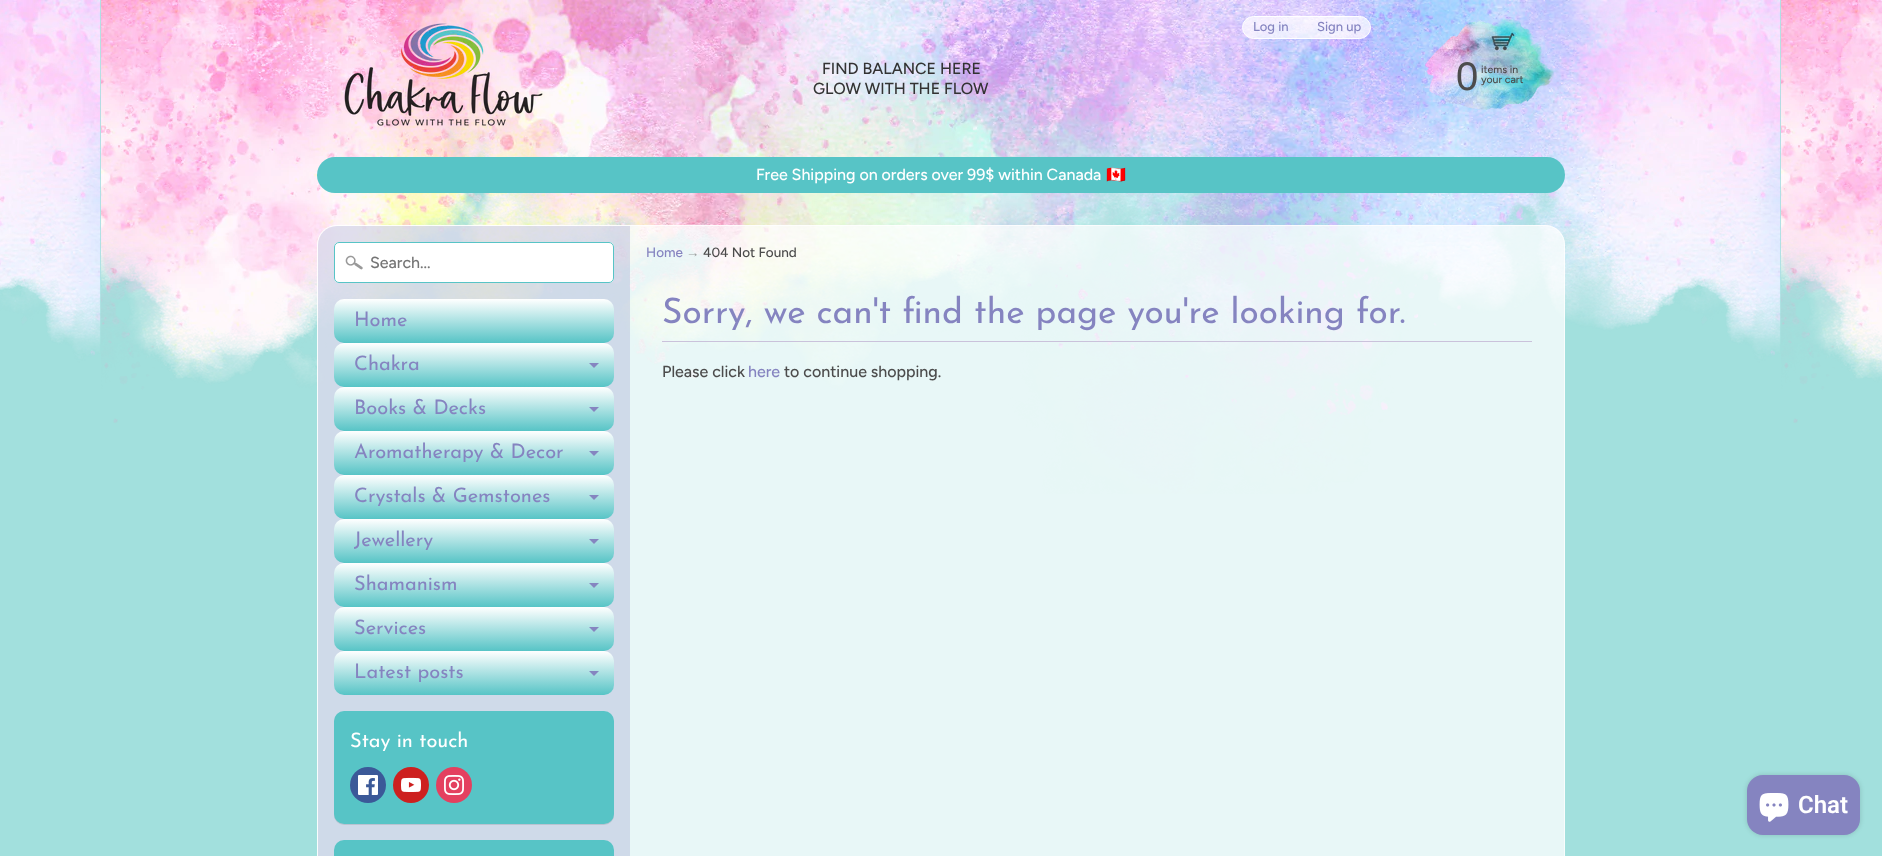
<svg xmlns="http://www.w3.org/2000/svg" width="1882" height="856">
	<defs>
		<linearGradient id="g1" gradientUnits="userSpaceOnUse" x1="474" y1="299" x2="474" y2="343"><stop offset="0" stop-color="#FFFFFF" /><stop offset="1" stop-color="#57C4C6" /></linearGradient>
		<linearGradient id="g2" gradientUnits="userSpaceOnUse" x1="474" y1="343" x2="474" y2="387"><stop offset="0" stop-color="#FFFFFF" /><stop offset="1" stop-color="#57C4C6" /></linearGradient>
		<linearGradient id="g3" gradientUnits="userSpaceOnUse" x1="474" y1="387" x2="474" y2="431"><stop offset="0" stop-color="#FFFFFF" /><stop offset="1" stop-color="#57C4C6" /></linearGradient>
		<linearGradient id="g4" gradientUnits="userSpaceOnUse" x1="474" y1="431" x2="474" y2="475"><stop offset="0" stop-color="#FFFFFF" /><stop offset="1" stop-color="#57C4C6" /></linearGradient>
		<linearGradient id="g5" gradientUnits="userSpaceOnUse" x1="474" y1="475" x2="474" y2="519"><stop offset="0" stop-color="#FFFFFF" /><stop offset="1" stop-color="#57C4C6" /></linearGradient>
		<linearGradient id="g6" gradientUnits="userSpaceOnUse" x1="474" y1="519" x2="474" y2="563"><stop offset="0" stop-color="#FFFFFF" /><stop offset="1" stop-color="#57C4C6" /></linearGradient>
		<linearGradient id="g7" gradientUnits="userSpaceOnUse" x1="474" y1="563" x2="474" y2="607"><stop offset="0" stop-color="#FFFFFF" /><stop offset="1" stop-color="#57C4C6" /></linearGradient>
		<linearGradient id="g8" gradientUnits="userSpaceOnUse" x1="474" y1="607" x2="474" y2="651"><stop offset="0" stop-color="#FFFFFF" /><stop offset="1" stop-color="#57C4C6" /></linearGradient>
		<linearGradient id="g9" gradientUnits="userSpaceOnUse" x1="474" y1="651" x2="474" y2="695"><stop offset="0" stop-color="#FFFFFF" /><stop offset="1" stop-color="#57C4C6" /></linearGradient>
	</defs>
	<rect width="100%" height="100%" fill="#A2E0DD" />
	<image x="0" y="0" width="1882" height="494" href="assets/img1.png" />
	<rect x="1242.5" y="16.5" width="128" height="22" rx="11" fill="#FFFFFF" fill-opacity="0.7" stroke="#FFFFFF" />
	<g font-family="Figtree" font-size="13" font-weight="500" fill="#8584C0">
		<text x="1253" y="31">Log in</text>
		<text x="1317" y="31">Sign up</text>
	</g>
	<image x="344" y="23" width="199" height="103" href="assets/img2.png" />
	<g font-family="Figtree" font-size="16" font-weight="500" fill="#333333">
		<text x="822" y="74">FIND BALANCE HERE</text>
		<text x="813" y="94">GLOW WITH THE FLOW</text>
	</g>
	<image x="1425" y="18" width="131" height="92" href="assets/img3.png" />
	<text x="1456" y="90" font-family="Liberation Sans" font-size="40" fill="#4C4C4C">0</text>
	<g font-family="Figtree" font-size="10.5" font-weight="500" fill="#4C4C4C">
		<text x="1481" y="73">items in</text>
		<text x="1481" y="83">your cart</text>
	</g>
	<rect x="317" y="157" width="1248" height="36" rx="18" fill="#57C4C6" />
	<text x="756" y="180" font-family="Figtree" font-size="16" font-weight="500" fill="#FFFFFF">Free Shipping on orders over 99$ within Canada</text>
	<text x="1106" y="180" font-family="Noto Color Emoji" font-size="16" fill="#FFFFFF">🇨🇦</text>
	<rect x="317" y="225" width="1248" height="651" rx="20" fill="#FFFFFF" fill-opacity="0.75" />
	<rect x="317.5" y="225.5" width="1247" height="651" rx="19.5" fill="none" stroke="#FFFFFF" stroke-opacity="0.7" />
	<path d="M337 226H630V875H337C326.5 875 318 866.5 318 856V245C318 234.5 326.5 226 337 226Z" fill="#8584C0" fill-opacity="0.25" />
	<rect x="334" y="242" width="280" height="41" rx="5" fill="#FFFFFF" />
	<image x="345" y="255" width="18" height="15" href="assets/img4.png" />
	<rect x="334.5" y="242.5" width="279" height="40" rx="4.5" fill="none" stroke="#57C4C6" />
	<text x="370" y="268" font-family="Figtree" font-size="16" font-weight="500" fill="#757575">Search...</text>
	<rect x="334" y="299" width="280" height="44" rx="10" fill="url(#g1)" />
	<text x="354" y="326" font-family="Josefin Sans" font-size="20" fill="#8584C0">Home</text>
	<rect x="334" y="343" width="280" height="44" rx="10" fill="url(#g2)" />
	<text x="354" y="370" font-family="Josefin Sans" font-size="20" fill="#8584C0">Chakra</text>
	<path d="M589 363H599L594 368Z" fill="#8585C0" />
	<rect x="334" y="387" width="280" height="44" rx="10" fill="url(#g3)" />
	<text x="354" y="414" font-family="Josefin Sans" font-size="20" fill="#8584C0">Books &amp; Decks</text>
	<path d="M589 407H599L594 412Z" fill="#8585C0" />
	<rect x="334" y="431" width="280" height="44" rx="10" fill="url(#g4)" />
	<text x="354" y="458" font-family="Josefin Sans" font-size="20" fill="#8584C0">Aromatherapy &amp; Decor</text>
	<path d="M589 451H599L594 456Z" fill="#8585C0" />
	<rect x="334" y="475" width="280" height="44" rx="10" fill="url(#g5)" />
	<text x="354" y="502" font-family="Josefin Sans" font-size="20" fill="#8584C0">Crystals &amp; Gemstones</text>
	<path d="M589 495H599L594 500Z" fill="#8585C0" />
	<rect x="334" y="519" width="280" height="44" rx="10" fill="url(#g6)" />
	<text x="354" y="546" font-family="Josefin Sans" font-size="20" fill="#8584C0">Jewellery</text>
	<path d="M589 539H599L594 544Z" fill="#8585C0" />
	<rect x="334" y="563" width="280" height="44" rx="10" fill="url(#g7)" />
	<text x="354" y="590" font-family="Josefin Sans" font-size="20" fill="#8584C0">Shamanism</text>
	<path d="M589 583H599L594 588Z" fill="#8585C0" />
	<rect x="334" y="607" width="280" height="44" rx="10" fill="url(#g8)" />
	<text x="354" y="634" font-family="Josefin Sans" font-size="20" fill="#8584C0">Services</text>
	<path d="M589 627H599L594 632Z" fill="#8585C0" />
	<rect x="334" y="651" width="280" height="44" rx="10" fill="url(#g9)" />
	<text x="354" y="678" font-family="Josefin Sans" font-size="20" fill="#8584C0">Latest posts</text>
	<path d="M589 671H599L594 676Z" fill="#8585C0" />
	<rect x="334" y="712" width="280" height="113" rx="10" fill="#000000" fill-opacity="0.1" filter="blur(0.5px)" />
	<rect x="334" y="711" width="280" height="113" rx="10" fill="#57C4C6" />
	<text x="350" y="747" font-family="Josefin Sans" font-size="20" fill="#FFFFFF">Stay in touch</text>
	<circle cx="368" cy="785" r="18" fill="#3B5998" />
	<image x="358" y="775" width="20" height="20" href="assets/img5.png" />
	<circle cx="411" cy="785" r="18" fill="#CD201F" />
	<image x="401" y="777" width="20" height="15" href="assets/img6.png" />
	<circle cx="454" cy="785" r="18" fill="#E4405F" />
	<image x="444" y="775" width="20" height="20" href="assets/img7.png" />
	<rect x="334" y="840" width="280" height="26" rx="10" fill="#57C4C6" />
	<text x="646" y="257" font-family="Figtree" font-size="13.5" font-weight="500" fill="#8584C0">Home</text>
	<text x="686" y="257" font-family="Liberation Sans" font-size="13.5" fill="#9DA1A1">→</text>
	<text x="703" y="257" font-family="Figtree" font-size="13.5" font-weight="500" fill="#4C4C4C">404 Not Found</text>
	<rect x="662" y="341" width="870" height="1" fill="#CAC2DB" />
	<text x="662" y="323" font-family="Josefin Sans" font-size="35.2" fill="#8584C0">Sorry, we can't find the page you're looking for.</text>
	<text x="662" y="377" font-family="Figtree" font-size="16" font-weight="500" fill="#4C4C4C">Please click</text>
	<text x="748" y="377" font-family="Figtree" font-size="16" font-weight="500" fill="#8584C0">here</text>
	<text x="784" y="377" font-family="Figtree" font-size="16" font-weight="500" fill="#4C4C4C">to continue shopping.</text>
	<rect x="1747" y="775" width="113" height="60" rx="16" fill="#000000" fill-opacity="0.15" filter="blur(2.5px)" />
	<rect x="1747" y="775" width="113" height="60" rx="16" fill="#8584C0" />
	<image x="1759" y="793" width="30" height="29" href="assets/img8.png" />
	<text x="1798" y="813" font-family="Roboto" font-size="24" font-weight="600" fill="#FFFFFF">Chat</text>
</svg>
